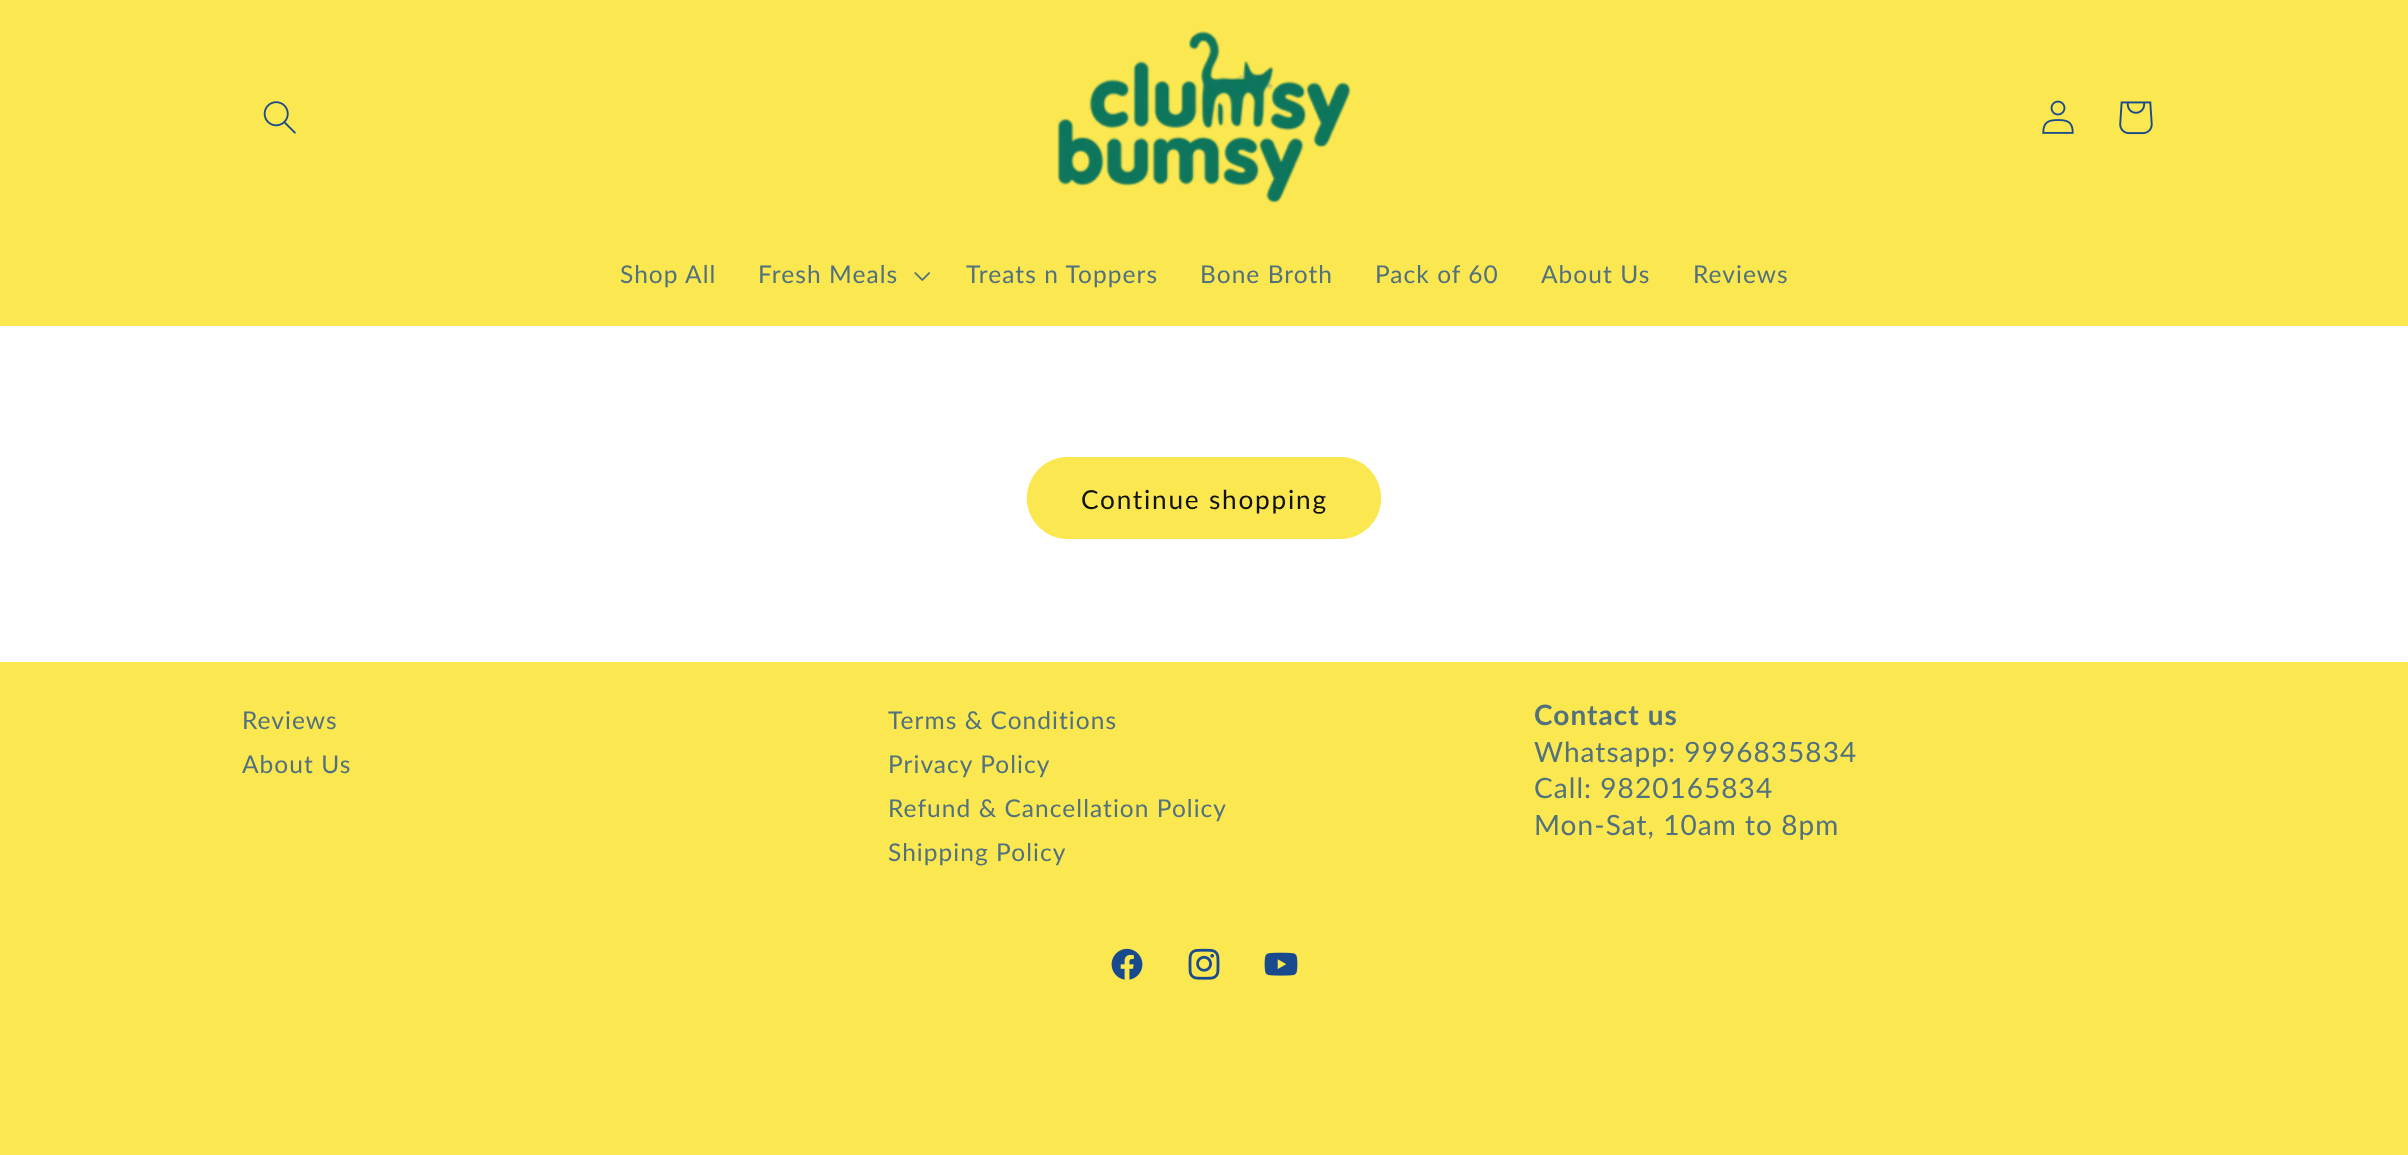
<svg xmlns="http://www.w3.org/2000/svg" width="2408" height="1155">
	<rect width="100%" height="100%" fill="#FFFFFF" />
	<rect x="0" y="0" width="2408" height="326" fill="#FBE74F" />
	<image x="263" y="101" width="33" height="33" href="assets/img1.png" />
	<image x="1057" y="31" width="294" height="172" href="assets/img2.png" />
	<image x="2042" y="100" width="32" height="34" href="assets/img3.png" />
	<image x="2119" y="101" width="34" height="34" href="assets/img4.png" />
	<g font-family="Lato" font-size="24.5" letter-spacing="1.05" fill="#51717E">
		<text x="620" y="283">Shop All</text>
		<text x="758" y="283">Fresh Meals</text>
	</g>
	<image x="914" y="272" width="16" height="9" href="assets/img5.png" />
	<g font-family="Lato" font-size="24.5" letter-spacing="1.05" fill="#51717E">
		<text x="966" y="283">Treats n Toppers</text>
		<text x="1200" y="283">Bone Broth</text>
		<text x="1375" y="283">Pack of 60</text>
		<text x="1541" y="283">About Us</text>
		<text x="1693" y="283">Reviews</text>
	</g>
	<rect x="1027" y="457" width="354" height="82" rx="41" fill="#FBE74F" />
	<rect x="1028" y="458" width="352" height="80" rx="40" fill="none" stroke="#FBE74F" stroke-width="2" />
	<text x="1081" y="509" font-family="Lato" font-size="26.25" letter-spacing="1.75" fill="#121212">Continue shopping</text>
	<rect x="0" y="662" width="2408" height="493" fill="#FBE74F" />
	<g font-family="Lato" font-size="24.5" letter-spacing="1.05" fill="#51717E">
		<text x="242" y="729">Reviews</text>
		<text x="242" y="773">About Us</text>
		<text x="888" y="729">Terms &amp; Conditions</text>
		<text x="888" y="773">Privacy Policy</text>
		<text x="888" y="817">Refund &amp; Cancellation Policy</text>
		<text x="888" y="861">Shipping Policy</text>
	</g>
	<text x="1534" y="725" font-family="Lato" font-size="28" font-weight="700" letter-spacing="1.05" fill="#51717E">Contact us</text>
	<g font-family="Lato" font-size="28" letter-spacing="1.05" fill="#51717E">
		<text x="1534" y="762">Whatsapp: 9996835834</text>
		<text x="1534" y="798">Call: 9820165834</text>
		<text x="1534" y="835">Mon-Sat, 10am to 8pm</text>
	</g>
	<image x="1111" y="948" width="32" height="32" href="assets/img6.png" />
	<image x="1188" y="948" width="32" height="32" href="assets/img7.png" />
	<image x="1264" y="952" width="34" height="24" href="assets/img8.png" />
</svg>
